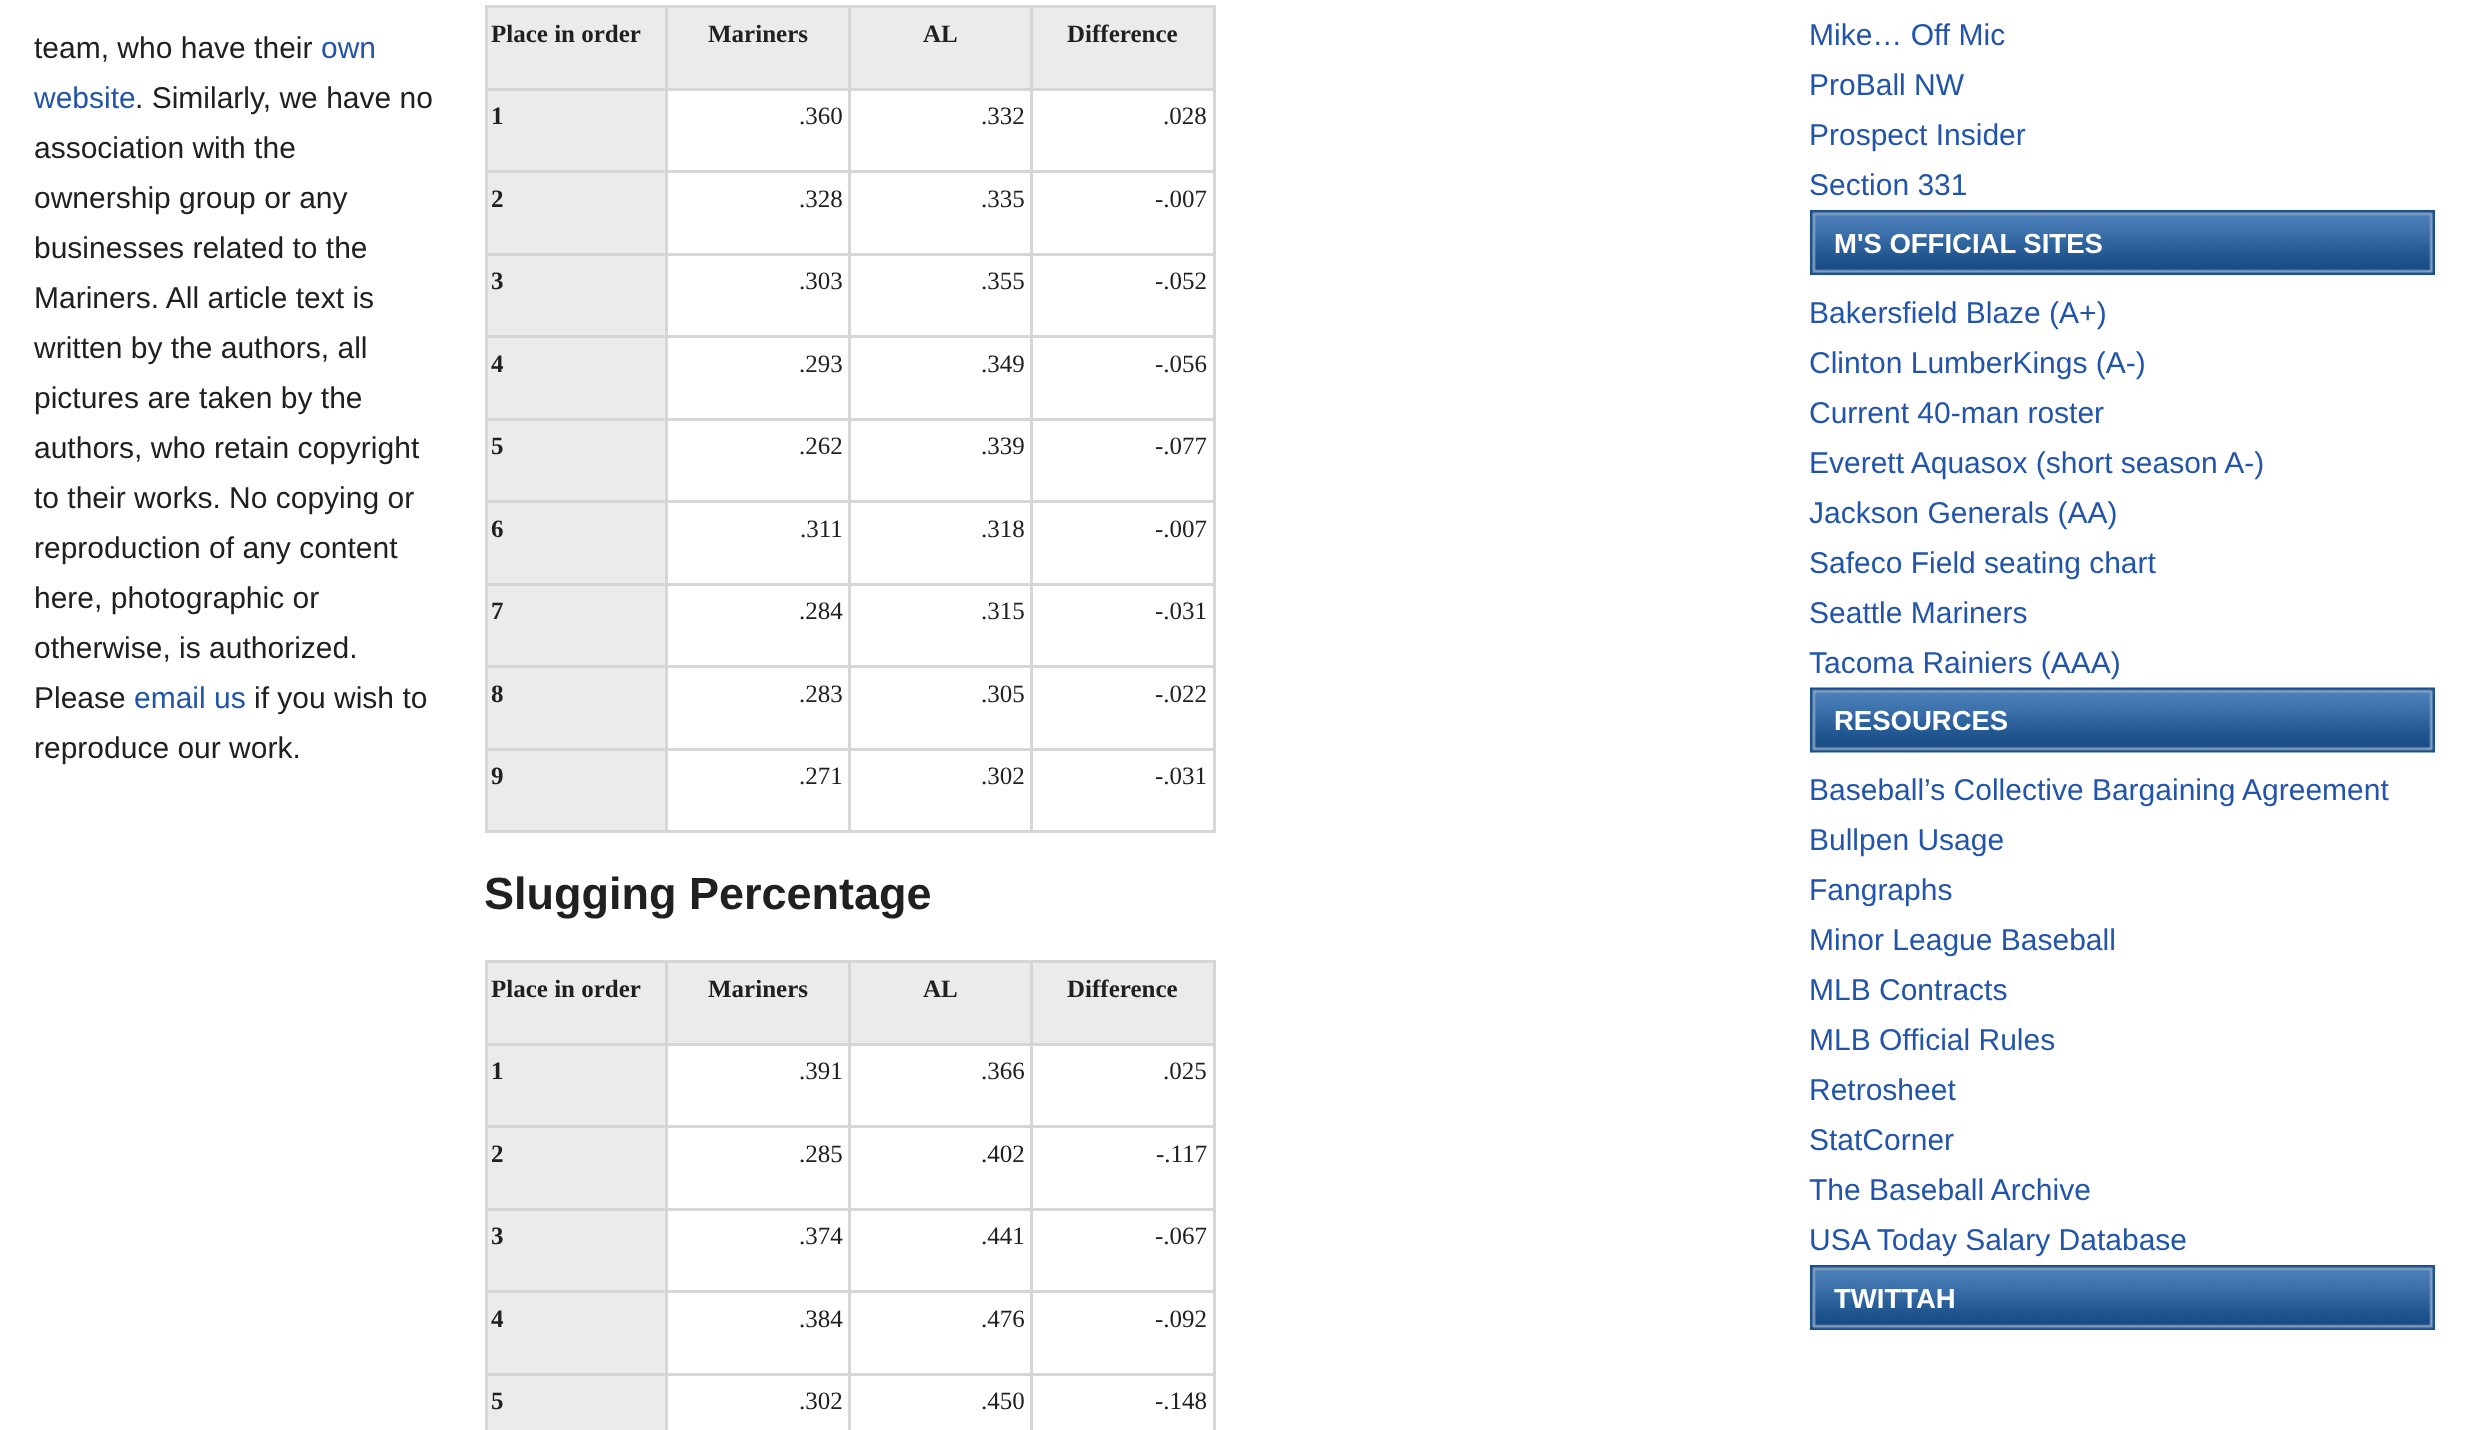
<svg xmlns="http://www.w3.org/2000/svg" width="2466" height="1430">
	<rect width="100%" height="100%" fill="#FFFFFF" />
	<text x="34" y="58" font-family="Liberation Sans" font-size="30" fill="#202020">team, who have their</text>
	<g font-family="Liberation Sans" font-size="30" fill="#2255AA">
		<text x="321" y="58">own</text>
		<text x="34" y="108">website</text>
	</g>
	<g font-family="Liberation Sans" font-size="30" fill="#202020">
		<text x="135" y="108">. Similarly, we have no</text>
		<text x="34" y="158">association with the</text>
		<text x="34" y="208">ownership group or any</text>
		<text x="34" y="258">businesses related to the</text>
		<text x="34" y="308">Mariners. All article text is</text>
		<text x="34" y="358">written by the authors, all</text>
		<text x="34" y="408">pictures are taken by the</text>
		<text x="34" y="458">authors, who retain copyright</text>
		<text x="34" y="508">to their works. No copying or</text>
		<text x="34" y="558">reproduction of any content</text>
		<text x="34" y="608">here, photographic or</text>
		<text x="34" y="658">otherwise, is authorized.</text>
		<text x="34" y="708">Please</text>
	</g>
	<text x="134" y="708" font-family="Liberation Sans" font-size="30" fill="#2255AA">email us</text>
	<g font-family="Liberation Sans" font-size="30" fill="#202020">
		<text x="254" y="708">if you wish to</text>
		<text x="34" y="758">reproduce our work.</text>
	</g>
	<rect x="488" y="8" width="177" height="80" fill="#EBEBEB" />
	<rect x="1030" y="5" width="185" height="3" fill="#D6D6D6" />
	<rect x="1030" y="88" width="185" height="3" fill="#D6D6D6" />
	<rect x="1030" y="170" width="185" height="3" fill="#D6D6D6" />
	<rect x="1030" y="253" width="185" height="3" fill="#D6D6D6" />
	<rect x="1030" y="335" width="185" height="3" fill="#D6D6D6" />
	<rect x="1030" y="418" width="185" height="3" fill="#D6D6D6" />
	<rect x="1030" y="500" width="185" height="3" fill="#D6D6D6" />
	<rect x="1030" y="583" width="185" height="3" fill="#D6D6D6" />
	<rect x="1030" y="665" width="185" height="3" fill="#D6D6D6" />
	<rect x="1030" y="748" width="185" height="3" fill="#D6D6D6" />
	<rect x="1213" y="748" width="3" height="85" fill="#D6D6D6" />
	<rect x="1030" y="830" width="185" height="3" fill="#D6D6D6" />
	<rect x="1030" y="748" width="3" height="85" fill="#D6D6D6" />
	<rect x="848" y="748" width="185" height="3" fill="#D6D6D6" />
	<rect x="1030" y="665" width="3" height="85" fill="#D6D6D6" />
	<rect x="848" y="665" width="185" height="3" fill="#D6D6D6" />
	<rect x="1030" y="583" width="3" height="85" fill="#D6D6D6" />
	<rect x="848" y="583" width="185" height="3" fill="#D6D6D6" />
	<rect x="1030" y="500" width="3" height="85" fill="#D6D6D6" />
	<rect x="848" y="500" width="185" height="3" fill="#D6D6D6" />
	<rect x="1030" y="418" width="3" height="85" fill="#D6D6D6" />
	<rect x="848" y="418" width="185" height="3" fill="#D6D6D6" />
	<rect x="1030" y="335" width="3" height="85" fill="#D6D6D6" />
	<rect x="848" y="335" width="185" height="3" fill="#D6D6D6" />
	<rect x="1030" y="253" width="3" height="85" fill="#D6D6D6" />
	<rect x="848" y="253" width="185" height="3" fill="#D6D6D6" />
	<rect x="1030" y="170" width="3" height="85" fill="#D6D6D6" />
	<rect x="848" y="170" width="185" height="3" fill="#D6D6D6" />
	<rect x="1030" y="88" width="3" height="85" fill="#D6D6D6" />
	<rect x="848" y="88" width="185" height="3" fill="#D6D6D6" />
	<rect x="1030" y="5" width="3" height="85" fill="#D6D6D6" />
	<rect x="848" y="5" width="185" height="3" fill="#D6D6D6" />
	<rect x="848" y="830" width="185" height="3" fill="#D6D6D6" />
	<rect x="848" y="748" width="3" height="85" fill="#D6D6D6" />
	<rect x="665" y="748" width="185" height="3" fill="#D6D6D6" />
	<rect x="848" y="665" width="3" height="85" fill="#D6D6D6" />
	<rect x="665" y="665" width="185" height="3" fill="#D6D6D6" />
	<rect x="848" y="583" width="3" height="85" fill="#D6D6D6" />
	<rect x="665" y="583" width="185" height="3" fill="#D6D6D6" />
	<rect x="848" y="500" width="3" height="85" fill="#D6D6D6" />
	<rect x="665" y="500" width="185" height="3" fill="#D6D6D6" />
	<rect x="848" y="418" width="3" height="85" fill="#D6D6D6" />
	<rect x="665" y="418" width="185" height="3" fill="#D6D6D6" />
	<rect x="848" y="335" width="3" height="85" fill="#D6D6D6" />
	<rect x="665" y="335" width="185" height="3" fill="#D6D6D6" />
	<rect x="848" y="253" width="3" height="85" fill="#D6D6D6" />
	<rect x="665" y="253" width="185" height="3" fill="#D6D6D6" />
	<rect x="848" y="170" width="3" height="85" fill="#D6D6D6" />
	<rect x="665" y="170" width="185" height="3" fill="#D6D6D6" />
	<rect x="848" y="88" width="3" height="85" fill="#D6D6D6" />
	<rect x="665" y="88" width="185" height="3" fill="#D6D6D6" />
	<rect x="848" y="5" width="3" height="85" fill="#D6D6D6" />
	<rect x="665" y="5" width="185" height="3" fill="#D6D6D6" />
	<rect x="665" y="830" width="185" height="3" fill="#D6D6D6" />
	<rect x="665" y="748" width="3" height="85" fill="#D6D6D6" />
	<rect x="485" y="748" width="183" height="3" fill="#D6D6D6" />
	<rect x="665" y="665" width="3" height="85" fill="#D6D6D6" />
	<rect x="485" y="665" width="183" height="3" fill="#D6D6D6" />
	<rect x="665" y="583" width="3" height="85" fill="#D6D6D6" />
	<rect x="485" y="583" width="183" height="3" fill="#D6D6D6" />
	<rect x="665" y="500" width="3" height="85" fill="#D6D6D6" />
	<rect x="485" y="500" width="183" height="3" fill="#D6D6D6" />
	<rect x="665" y="418" width="3" height="85" fill="#D6D6D6" />
	<rect x="485" y="418" width="183" height="3" fill="#D6D6D6" />
	<rect x="665" y="335" width="3" height="85" fill="#D6D6D6" />
	<rect x="485" y="335" width="183" height="3" fill="#D6D6D6" />
	<rect x="665" y="253" width="3" height="85" fill="#D6D6D6" />
	<rect x="485" y="253" width="183" height="3" fill="#D6D6D6" />
	<rect x="665" y="170" width="3" height="85" fill="#D6D6D6" />
	<rect x="485" y="170" width="183" height="3" fill="#D6D6D6" />
	<rect x="665" y="88" width="3" height="85" fill="#D6D6D6" />
	<rect x="485" y="88" width="183" height="3" fill="#D6D6D6" />
	<rect x="665" y="5" width="3" height="85" fill="#D6D6D6" />
	<rect x="485" y="5" width="183" height="3" fill="#D6D6D6" />
	<rect x="485" y="830" width="183" height="3" fill="#D6D6D6" />
	<rect x="485" y="748" width="3" height="85" fill="#D6D6D6" />
	<rect x="485" y="665" width="3" height="85" fill="#D6D6D6" />
	<rect x="485" y="583" width="3" height="85" fill="#D6D6D6" />
	<rect x="485" y="500" width="3" height="85" fill="#D6D6D6" />
	<rect x="485" y="418" width="3" height="85" fill="#D6D6D6" />
	<rect x="485" y="335" width="3" height="85" fill="#D6D6D6" />
	<rect x="485" y="253" width="3" height="85" fill="#D6D6D6" />
	<rect x="485" y="170" width="3" height="85" fill="#D6D6D6" />
	<rect x="485" y="88" width="3" height="85" fill="#D6D6D6" />
	<rect x="485" y="5" width="3" height="85" fill="#D6D6D6" />
	<text x="491" y="42" font-family="Liberation Serif" font-size="25" font-weight="700" fill="#202020">Place in order</text>
	<rect x="668" y="8" width="180" height="80" fill="#EBEBEB" />
	<text x="708" y="42" font-family="Liberation Serif" font-size="25" font-weight="700" fill="#202020">Mariners</text>
	<rect x="851" y="8" width="179" height="80" fill="#EBEBEB" />
	<text x="923" y="42" font-family="Liberation Serif" font-size="25" font-weight="700" fill="#202020">AL</text>
	<rect x="1033" y="8" width="180" height="80" fill="#EBEBEB" />
	<rect x="1213" y="665" width="3" height="85" fill="#D6D6D6" />
	<rect x="1213" y="583" width="3" height="85" fill="#D6D6D6" />
	<rect x="1213" y="500" width="3" height="85" fill="#D6D6D6" />
	<rect x="1213" y="418" width="3" height="85" fill="#D6D6D6" />
	<rect x="1213" y="335" width="3" height="85" fill="#D6D6D6" />
	<rect x="1213" y="253" width="3" height="85" fill="#D6D6D6" />
	<rect x="1213" y="170" width="3" height="85" fill="#D6D6D6" />
	<rect x="1213" y="88" width="3" height="85" fill="#D6D6D6" />
	<rect x="1213" y="5" width="3" height="85" fill="#D6D6D6" />
	<text x="1067" y="42" font-family="Liberation Serif" font-size="25" font-weight="700" fill="#202020">Difference</text>
	<rect x="488" y="91" width="177" height="79" fill="#EBEBEB" />
	<text x="491" y="124" font-family="Liberation Serif" font-size="25" font-weight="700" fill="#202020">1</text>
	<g font-family="Liberation Serif" font-size="25" fill="#202020">
		<text x="799" y="124">.360</text>
		<text x="981" y="124">.332</text>
		<text x="1163" y="124">.028</text>
	</g>
	<rect x="488" y="173" width="177" height="80" fill="#EBEBEB" />
	<text x="491" y="207" font-family="Liberation Serif" font-size="25" font-weight="700" fill="#202020">2</text>
	<g font-family="Liberation Serif" font-size="25" fill="#202020">
		<text x="799" y="207">.328</text>
		<text x="981" y="207">.335</text>
		<text x="1155" y="207">-.007</text>
	</g>
	<rect x="488" y="256" width="177" height="79" fill="#EBEBEB" />
	<text x="491" y="289" font-family="Liberation Serif" font-size="25" font-weight="700" fill="#202020">3</text>
	<g font-family="Liberation Serif" font-size="25" fill="#202020">
		<text x="799" y="289">.303</text>
		<text x="981" y="289">.355</text>
		<text x="1155" y="289">-.052</text>
	</g>
	<rect x="488" y="338" width="177" height="80" fill="#EBEBEB" />
	<text x="491" y="372" font-family="Liberation Serif" font-size="25" font-weight="700" fill="#202020">4</text>
	<g font-family="Liberation Serif" font-size="25" fill="#202020">
		<text x="799" y="372">.293</text>
		<text x="981" y="372">.349</text>
		<text x="1155" y="372">-.056</text>
	</g>
	<rect x="488" y="421" width="177" height="79" fill="#EBEBEB" />
	<text x="491" y="454" font-family="Liberation Serif" font-size="25" font-weight="700" fill="#202020">5</text>
	<g font-family="Liberation Serif" font-size="25" fill="#202020">
		<text x="799" y="454">.262</text>
		<text x="981" y="454">.339</text>
		<text x="1155" y="454">-.077</text>
	</g>
	<rect x="488" y="503" width="177" height="80" fill="#EBEBEB" />
	<text x="491" y="537" font-family="Liberation Serif" font-size="25" font-weight="700" fill="#202020">6</text>
	<g font-family="Liberation Serif" font-size="25" fill="#202020">
		<text x="800" y="537">.311</text>
		<text x="981" y="537">.318</text>
		<text x="1155" y="537">-.007</text>
	</g>
	<rect x="488" y="586" width="177" height="79" fill="#EBEBEB" />
	<text x="491" y="619" font-family="Liberation Serif" font-size="25" font-weight="700" fill="#202020">7</text>
	<g font-family="Liberation Serif" font-size="25" fill="#202020">
		<text x="799" y="619">.284</text>
		<text x="981" y="619">.315</text>
		<text x="1155" y="619">-.031</text>
	</g>
	<rect x="488" y="668" width="177" height="80" fill="#EBEBEB" />
	<text x="491" y="702" font-family="Liberation Serif" font-size="25" font-weight="700" fill="#202020">8</text>
	<g font-family="Liberation Serif" font-size="25" fill="#202020">
		<text x="799" y="702">.283</text>
		<text x="981" y="702">.305</text>
		<text x="1155" y="702">-.022</text>
	</g>
	<rect x="488" y="751" width="177" height="79" fill="#EBEBEB" />
	<text x="491" y="784" font-family="Liberation Serif" font-size="25" font-weight="700" fill="#202020">9</text>
	<g font-family="Liberation Serif" font-size="25" fill="#202020">
		<text x="799" y="784">.271</text>
		<text x="981" y="784">.302</text>
		<text x="1155" y="784">-.031</text>
	</g>
	<text x="484" y="909" font-family="Liberation Sans" font-size="45" font-weight="700" fill="#202020">Slugging Percentage</text>
	<rect x="488" y="963" width="177" height="80" fill="#EBEBEB" />
	<rect x="1030" y="960" width="185" height="3" fill="#D6D6D6" />
	<rect x="1030" y="1043" width="185" height="3" fill="#D6D6D6" />
	<rect x="1030" y="1125" width="185" height="3" fill="#D6D6D6" />
	<rect x="1030" y="1208" width="185" height="3" fill="#D6D6D6" />
	<rect x="1030" y="1290" width="185" height="3" fill="#D6D6D6" />
	<rect x="1030" y="1373" width="185" height="3" fill="#D6D6D6" />
	<rect x="1030" y="1373" width="3" height="57" fill="#D6D6D6" />
	<rect x="848" y="1373" width="185" height="3" fill="#D6D6D6" />
	<rect x="1030" y="1290" width="3" height="85" fill="#D6D6D6" />
	<rect x="848" y="1290" width="185" height="3" fill="#D6D6D6" />
	<rect x="1030" y="1208" width="3" height="85" fill="#D6D6D6" />
	<rect x="848" y="1208" width="185" height="3" fill="#D6D6D6" />
	<rect x="1030" y="1125" width="3" height="85" fill="#D6D6D6" />
	<rect x="848" y="1125" width="185" height="3" fill="#D6D6D6" />
	<rect x="1030" y="1043" width="3" height="85" fill="#D6D6D6" />
	<rect x="848" y="1043" width="185" height="3" fill="#D6D6D6" />
	<rect x="1030" y="960" width="3" height="85" fill="#D6D6D6" />
	<rect x="848" y="960" width="185" height="3" fill="#D6D6D6" />
	<rect x="848" y="1373" width="3" height="57" fill="#D6D6D6" />
	<rect x="665" y="1373" width="185" height="3" fill="#D6D6D6" />
	<rect x="848" y="1290" width="3" height="85" fill="#D6D6D6" />
	<rect x="665" y="1290" width="185" height="3" fill="#D6D6D6" />
	<rect x="848" y="1208" width="3" height="85" fill="#D6D6D6" />
	<rect x="665" y="1208" width="185" height="3" fill="#D6D6D6" />
	<rect x="848" y="1125" width="3" height="85" fill="#D6D6D6" />
	<rect x="665" y="1125" width="185" height="3" fill="#D6D6D6" />
	<rect x="848" y="1043" width="3" height="85" fill="#D6D6D6" />
	<rect x="665" y="1043" width="185" height="3" fill="#D6D6D6" />
	<rect x="848" y="960" width="3" height="85" fill="#D6D6D6" />
	<rect x="665" y="960" width="185" height="3" fill="#D6D6D6" />
	<rect x="665" y="1373" width="3" height="57" fill="#D6D6D6" />
	<rect x="485" y="1373" width="183" height="3" fill="#D6D6D6" />
	<rect x="665" y="1290" width="3" height="85" fill="#D6D6D6" />
	<rect x="485" y="1290" width="183" height="3" fill="#D6D6D6" />
	<rect x="665" y="1208" width="3" height="85" fill="#D6D6D6" />
	<rect x="485" y="1208" width="183" height="3" fill="#D6D6D6" />
	<rect x="665" y="1125" width="3" height="85" fill="#D6D6D6" />
	<rect x="485" y="1125" width="183" height="3" fill="#D6D6D6" />
	<rect x="665" y="1043" width="3" height="85" fill="#D6D6D6" />
	<rect x="485" y="1043" width="183" height="3" fill="#D6D6D6" />
	<rect x="665" y="960" width="3" height="85" fill="#D6D6D6" />
	<rect x="485" y="960" width="183" height="3" fill="#D6D6D6" />
	<rect x="485" y="1373" width="3" height="57" fill="#D6D6D6" />
	<rect x="485" y="1290" width="3" height="85" fill="#D6D6D6" />
	<rect x="485" y="1208" width="3" height="85" fill="#D6D6D6" />
	<rect x="485" y="1125" width="3" height="85" fill="#D6D6D6" />
	<rect x="485" y="1043" width="3" height="85" fill="#D6D6D6" />
	<rect x="485" y="960" width="3" height="85" fill="#D6D6D6" />
	<text x="491" y="997" font-family="Liberation Serif" font-size="25" font-weight="700" fill="#202020">Place in order</text>
	<rect x="668" y="963" width="180" height="80" fill="#EBEBEB" />
	<text x="708" y="997" font-family="Liberation Serif" font-size="25" font-weight="700" fill="#202020">Mariners</text>
	<rect x="851" y="963" width="179" height="80" fill="#EBEBEB" />
	<text x="923" y="997" font-family="Liberation Serif" font-size="25" font-weight="700" fill="#202020">AL</text>
	<rect x="1033" y="963" width="180" height="80" fill="#EBEBEB" />
	<rect x="1213" y="1373" width="3" height="57" fill="#D6D6D6" />
	<rect x="1213" y="1290" width="3" height="85" fill="#D6D6D6" />
	<rect x="1213" y="1208" width="3" height="85" fill="#D6D6D6" />
	<rect x="1213" y="1125" width="3" height="85" fill="#D6D6D6" />
	<rect x="1213" y="1043" width="3" height="85" fill="#D6D6D6" />
	<rect x="1213" y="960" width="3" height="85" fill="#D6D6D6" />
	<text x="1067" y="997" font-family="Liberation Serif" font-size="25" font-weight="700" fill="#202020">Difference</text>
	<rect x="488" y="1046" width="177" height="79" fill="#EBEBEB" />
	<text x="491" y="1079" font-family="Liberation Serif" font-size="25" font-weight="700" fill="#202020">1</text>
	<g font-family="Liberation Serif" font-size="25" fill="#202020">
		<text x="799" y="1079">.391</text>
		<text x="981" y="1079">.366</text>
		<text x="1163" y="1079">.025</text>
	</g>
	<rect x="488" y="1128" width="177" height="80" fill="#EBEBEB" />
	<text x="491" y="1162" font-family="Liberation Serif" font-size="25" font-weight="700" fill="#202020">2</text>
	<g font-family="Liberation Serif" font-size="25" fill="#202020">
		<text x="799" y="1162">.285</text>
		<text x="981" y="1162">.402</text>
		<text x="1156" y="1162">-.117</text>
	</g>
	<rect x="488" y="1211" width="177" height="79" fill="#EBEBEB" />
	<text x="491" y="1244" font-family="Liberation Serif" font-size="25" font-weight="700" fill="#202020">3</text>
	<g font-family="Liberation Serif" font-size="25" fill="#202020">
		<text x="799" y="1244">.374</text>
		<text x="981" y="1244">.441</text>
		<text x="1155" y="1244">-.067</text>
	</g>
	<rect x="488" y="1293" width="177" height="80" fill="#EBEBEB" />
	<text x="491" y="1327" font-family="Liberation Serif" font-size="25" font-weight="700" fill="#202020">4</text>
	<g font-family="Liberation Serif" font-size="25" fill="#202020">
		<text x="799" y="1327">.384</text>
		<text x="981" y="1327">.476</text>
		<text x="1155" y="1327">-.092</text>
	</g>
	<rect x="488" y="1376" width="177" height="54" fill="#EBEBEB" />
	<text x="491" y="1409" font-family="Liberation Serif" font-size="25" font-weight="700" fill="#202020">5</text>
	<g font-family="Liberation Serif" font-size="25" fill="#202020">
		<text x="799" y="1409">.302</text>
		<text x="981" y="1409">.450</text>
		<text x="1155" y="1409">-.148</text>
	</g>
	<g font-family="Liberation Sans" font-size="30" fill="#2255AA">
		<text x="1809" y="45">Mike… Off Mic</text>
		<text x="1809" y="95">ProBall NW</text>
		<text x="1809" y="145">Prospect Insider</text>
		<text x="1809" y="195">Section 331</text>
	</g>
	<image x="1810" y="210" width="625" height="65" href="assets/img1.png" />
	<text x="1834" y="253" font-family="Liberation Sans" font-size="27.5" font-weight="700" fill="#FFFFFF">M'S OFFICIAL SITES</text>
	<g font-family="Liberation Sans" font-size="30" fill="#2255AA">
		<text x="1809" y="323">Bakersfield Blaze (A+)</text>
		<text x="1809" y="373">Clinton LumberKings (A-)</text>
		<text x="1809" y="423">Current 40-man roster</text>
		<text x="1809" y="473">Everett Aquasox (short season A-)</text>
		<text x="1809" y="523">Jackson Generals (AA)</text>
		<text x="1809" y="573">Safeco Field seating chart</text>
		<text x="1809" y="623">Seattle Mariners</text>
		<text x="1809" y="673">Tacoma Rainiers (AAA)</text>
	</g>
	<image x="1810" y="687" width="625" height="66" href="assets/img2.png" />
	<text x="1834" y="730" font-family="Liberation Sans" font-size="27.5" font-weight="700" fill="#FFFFFF">RESOURCES</text>
	<g font-family="Liberation Sans" font-size="30" fill="#2255AA">
		<text x="1809" y="800">Baseball’s Collective Bargaining Agreement</text>
		<text x="1809" y="850">Bullpen Usage</text>
		<text x="1809" y="900">Fangraphs</text>
		<text x="1809" y="950">Minor League Baseball</text>
		<text x="1809" y="1000">MLB Contracts</text>
		<text x="1809" y="1050">MLB Official Rules</text>
		<text x="1809" y="1100">Retrosheet</text>
		<text x="1809" y="1150">StatCorner</text>
		<text x="1809" y="1200">The Baseball Archive</text>
		<text x="1809" y="1250">USA Today Salary Database</text>
	</g>
	<image x="1810" y="1265" width="625" height="65" href="assets/img1.png" />
	<text x="1834" y="1308" font-family="Liberation Sans" font-size="27.5" font-weight="700" fill="#FFFFFF">TWITTAH</text>
</svg>
